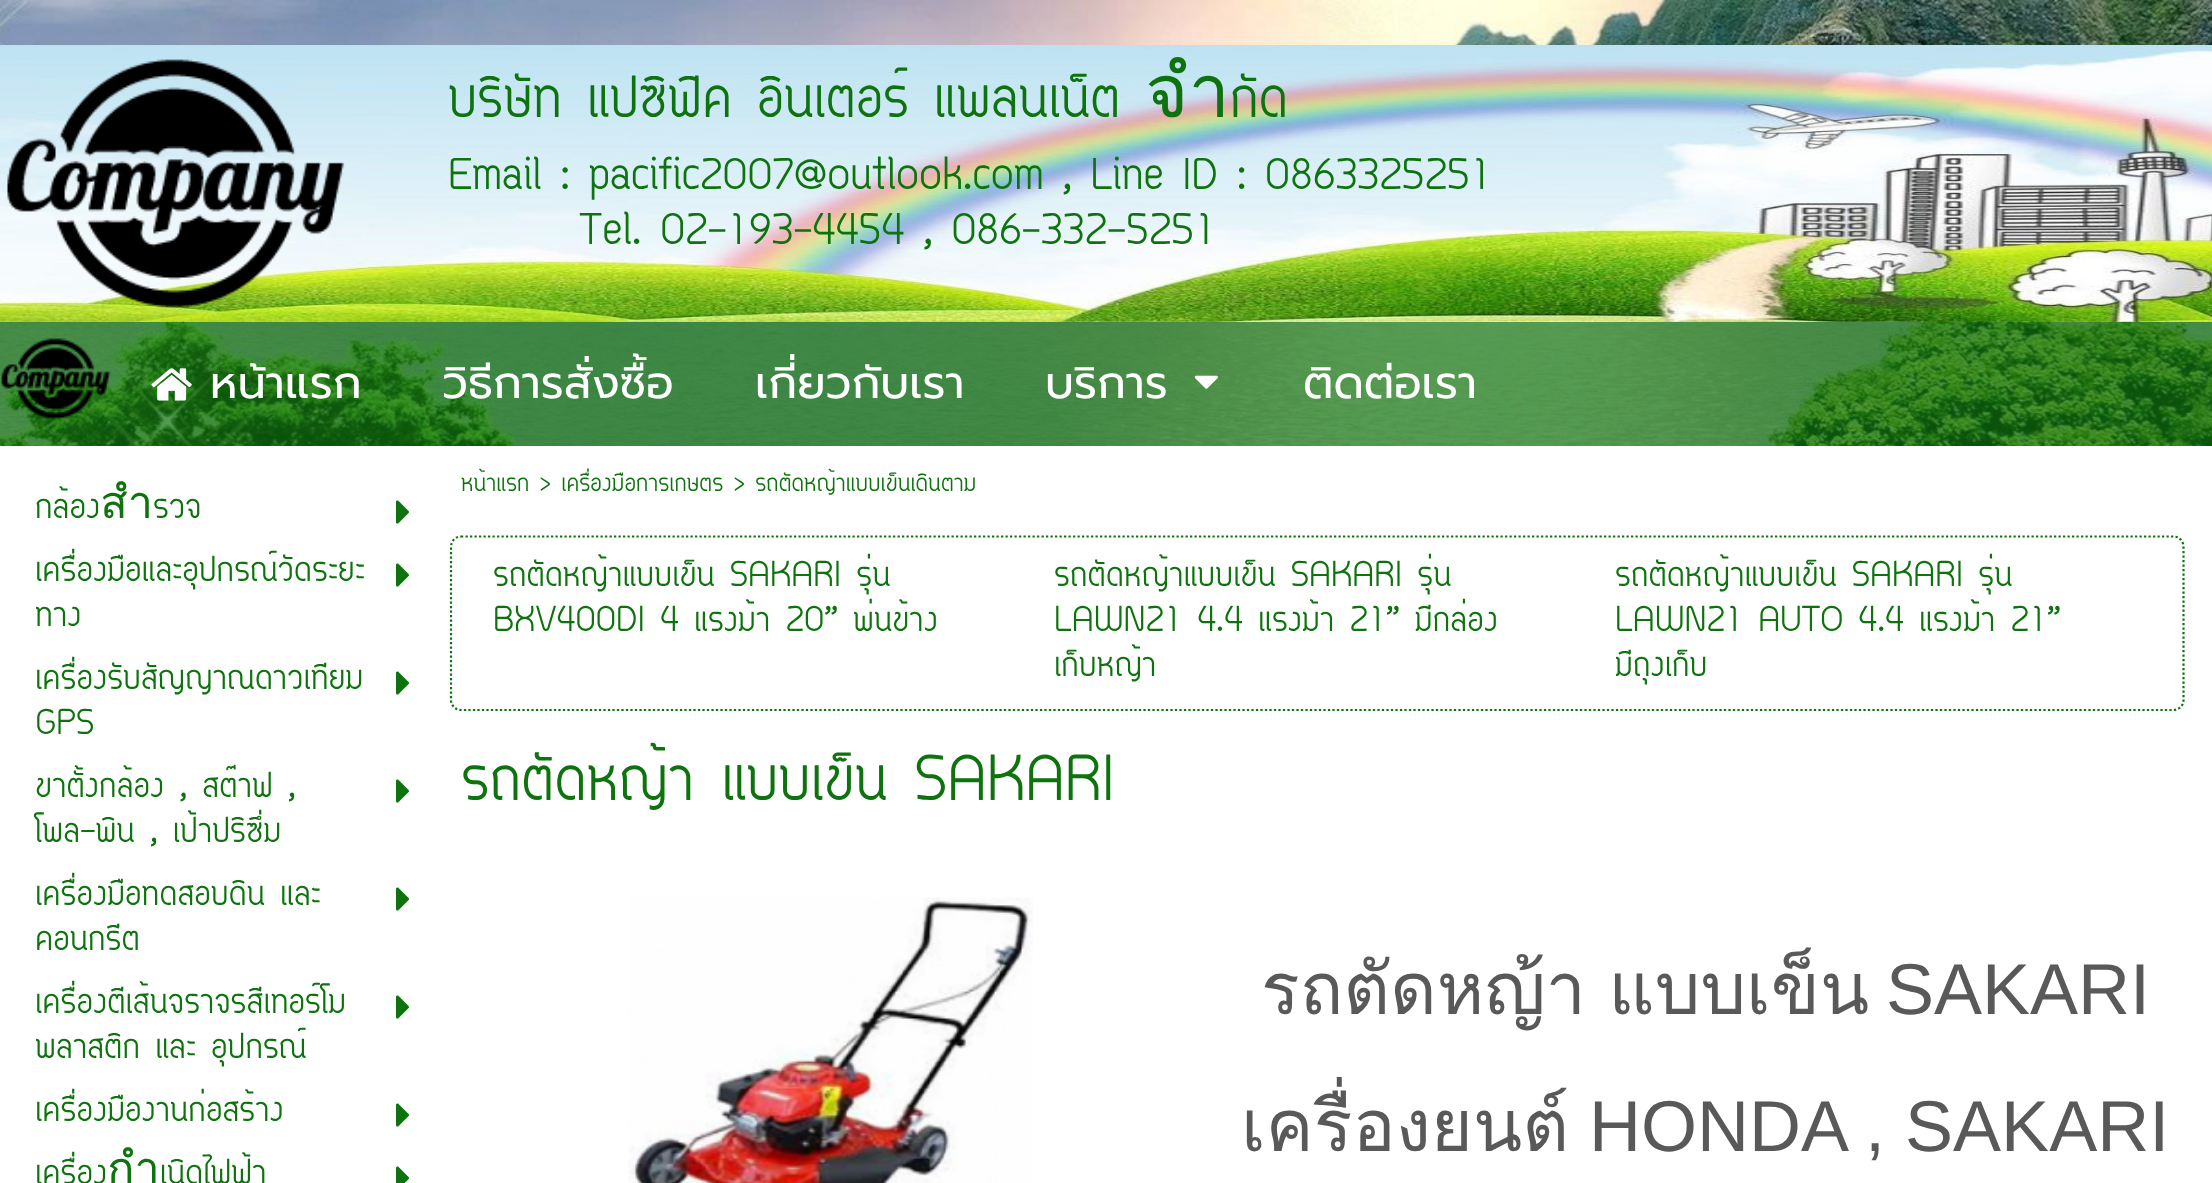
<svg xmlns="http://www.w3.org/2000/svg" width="2212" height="1183">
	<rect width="100%" height="100%" fill="#FFFFFF" />
	<image x="0" y="0" width="2212" height="446" href="assets/img1.png" />
	<image x="0" y="45" width="2212" height="277" href="assets/img2.png" />
	<image x="7" y="59" width="338" height="249" href="assets/img3.png" />
	<text x="448" y="117" font-family="Circular" font-size="73.75" fill="#0E730E">บริษัท แปซิฟิค อินเตอร์ แพลนเน็ต จำกัด</text>
	<g font-family="Circular" font-size="55.4" fill="#0E730E">
		<text x="448" y="189">Email : pacific2007@outlook.com , Line ID : 0863325251</text>
		<text x="579" y="244">Tel. 02-193-4454 , 086-332-5251</text>
	</g>
	<rect x="0" y="322" width="2212" height="124" fill="#0E730E" fill-opacity="0.7" />
	<image x="1" y="338" width="110" height="82" href="assets/img4.png" />
	<image x="151" y="368" width="41" height="33" href="assets/img5.png" />
	<g font-family="Prompt" font-size="45" fill="#FFFFFF">
		<text x="210" y="398">หน้าแรก</text>
		<text x="442" y="398">วิธีการสั่งซื้อ</text>
		<text x="755" y="398">เกี่ยวกับเรา</text>
		<text x="1045" y="398">บริการ</text>
	</g>
	<image x="1194" y="375" width="24" height="14" href="assets/img6.png" />
	<text x="1303" y="398" font-family="Prompt" font-size="45" fill="#FFFFFF">ติดต่อเรา</text>
	<text x="461" y="491" font-family="Circular" font-size="31.5" fill="#0E730E">หน้าแรก &gt; เครื่องมือการเกษตร &gt; รถตัดหญ้าแบบเข็นเดินตาม</text>
	<text x="35" y="518" font-family="Circular" font-size="45" fill="#0E730E">กล้องสำรวจ</text>
	<image x="396" y="500" width="13" height="24" href="assets/img7.png" />
	<g font-family="Circular" font-size="45" fill="#0E730E">
		<text x="35" y="581">เครื่องมือและอุปกรณ์วัดระยะ</text>
		<text x="35" y="626">ทาง</text>
	</g>
	<image x="396" y="563" width="13" height="24" href="assets/img7.png" />
	<g font-family="Circular" font-size="45" fill="#0E730E">
		<text x="35" y="689">เครื่องรับสัญญาณดาวเทียม</text>
		<text x="35" y="734">GPS</text>
	</g>
	<image x="396" y="671" width="13" height="24" href="assets/img7.png" />
	<g font-family="Circular" font-size="45" fill="#0E730E">
		<text x="35" y="797">ขาตั้งกล้อง , สต๊าฟ ,</text>
		<text x="35" y="842">โพล-พิน , เป้าปริซึ่ม</text>
	</g>
	<image x="396" y="779" width="13" height="24" href="assets/img7.png" />
	<g font-family="Circular" font-size="45" fill="#0E730E">
		<text x="35" y="905">เครื่องมือทดสอบดิน และ</text>
		<text x="35" y="950">คอนกรีต</text>
	</g>
	<image x="396" y="887" width="13" height="24" href="assets/img7.png" />
	<g font-family="Circular" font-size="45" fill="#0E730E">
		<text x="35" y="1013">เครื่องตีเส้นจราจรสีเทอร์โม</text>
		<text x="35" y="1058">พลาสติก และ อุปกรณ์</text>
	</g>
	<image x="396" y="995" width="13" height="24" href="assets/img7.png" />
	<text x="35" y="1121" font-family="Circular" font-size="45" fill="#0E730E">เครื่องมืองานก่อสร้าง</text>
	<image x="396" y="1103" width="13" height="24" href="assets/img7.png" />
	<text x="35" y="1184" font-family="Circular" font-size="45" fill="#0E730E">เครื่องกำเนิดไฟฟ้า</text>
	<image x="396" y="1166" width="13" height="17" href="assets/img8.png" />
	<path d="M461 536.5H2173.5C2179 536.5 2183.5 541 2183.5 547V700C2183.5 705.5 2179 710 2173.5 710H461C455.5 710 451 705.5 451 700V547C451 541 455.5 536.5 461 536.5Z" fill="none" stroke="#0E730E" stroke-width="2.2" stroke-dasharray="2.25 2.25" />
	<g font-family="Circular" font-size="45" fill="#0E730E">
		<text x="493" y="586">รถตัดหญ้าแบบเข็น SAKARI รุ่น</text>
		<text x="493" y="631">BXV400DI 4 แรงม้า 20’’ พ่นข้าง</text>
		<text x="1054" y="586">รถตัดหญ้าแบบเข็น SAKARI รุ่น</text>
		<text x="1054" y="631">LAWN21 4.4 แรงม้า 21’’ มีกล่อง</text>
		<text x="1054" y="676">เก็บหญ้า</text>
		<text x="1615" y="586">รถตัดหญ้าแบบเข็น SAKARI รุ่น</text>
		<text x="1615" y="631">LAWN21 AUTO 4.4 แรงม้า 21’’</text>
		<text x="1615" y="676">มีถุงเก็บ</text>
	</g>
	<text x="461" y="800" font-family="Circular" font-size="81" fill="#0E730E">รถตัดหญ้า แบบเข็น SAKARI</text>
	<image x="628" y="897" width="405" height="286" href="assets/img9.png" />
	<text x="1261" y="1014" word-spacing="-2" font-family="Loma" font-size="72" fill="#595959">รถตัดหญ้า แบบเข็น</text>
	<text x="1886" y="1014" font-family="Liberation Sans" font-size="72" fill="#595959">SAKARI</text>
	<text x="1241" y="1151" font-family="Loma" font-size="72" fill="#595959">เครื่องยนต์</text>
	<text x="1589" y="1151" font-family="Liberation Sans" font-size="72" fill="#595959">HONDA , SAKARI</text>
</svg>
